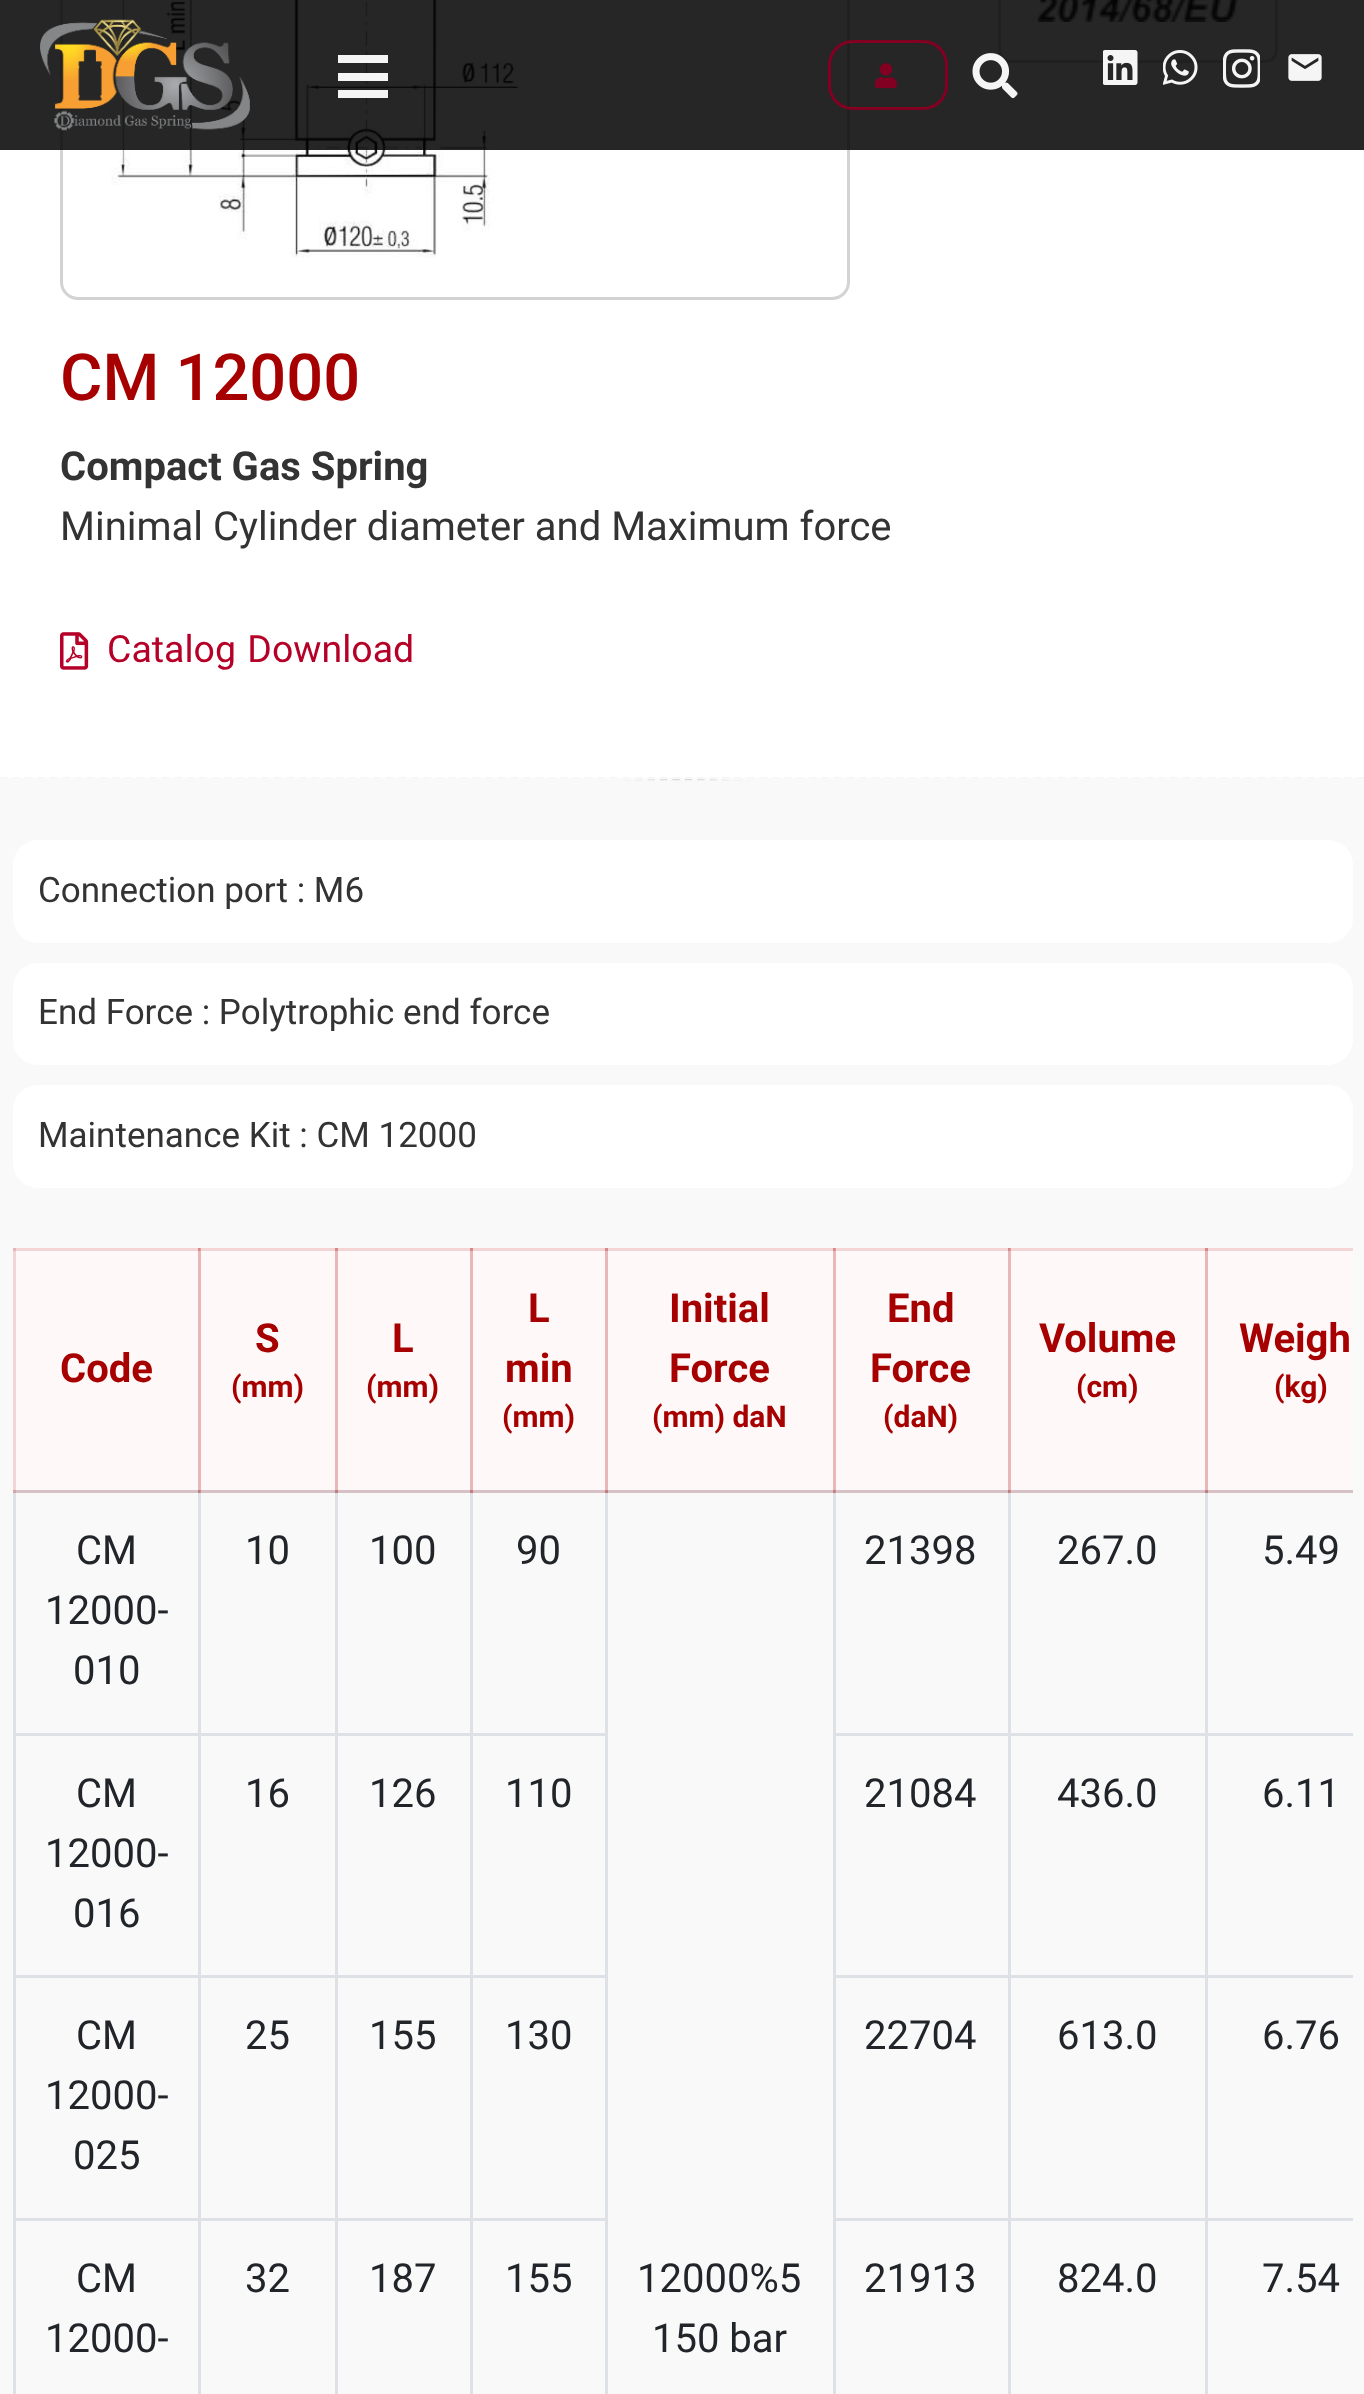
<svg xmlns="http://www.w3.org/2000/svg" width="1364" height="2394">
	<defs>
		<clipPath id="clip1"><rect x="0" y="778" width="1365" height="190" /></clipPath>
	</defs>
	<rect width="100%" height="100%" fill="#F9F9F9" />
	<rect x="13" y="1248" width="2" height="245" fill="#EED6D6" />
	<rect x="13" y="1248" width="3" height="3" fill="#E4B8B8" />
	<rect x="0" y="0" width="1364" height="780" fill="#FFFFFF" />
	<rect x="61.5" y="-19.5" width="787" height="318" rx="16.5" fill="none" stroke="#D3D3D3" stroke-width="3" />
	<image x="111" y="0" width="414" height="258" href="assets/img8.png" />
	<rect x="999.5" y="-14.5" width="277" height="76" rx="11.5" fill="none" stroke="#D3D3D3" stroke-width="3" />
	<image x="1037" y="0" width="201" height="22" href="assets/img9.png" />
	<rect x="0" y="0" width="1364" height="150" fill="#000000" fill-opacity="0.85" />
	<image x="40" y="19" width="210" height="112" href="assets/img1.png" />
	<rect x="338" y="73" width="50" height="8" fill="#F5F5F5" />
	<rect x="338" y="55" width="50" height="8" fill="#F5F5F5" />
	<rect x="338" y="90" width="50" height="8" fill="#F5F5F5" />
	<image x="875" y="63" width="22" height="26" href="assets/img2.png" />
	<rect x="829.5" y="41.5" width="117" height="67" rx="23.5" fill="none" stroke="#820021" stroke-width="3" />
	<image x="972" y="53" width="46" height="46" href="assets/img3.png" />
	<image x="1103" y="50" width="35" height="35" href="assets/img4.png" />
	<image x="1163" y="50" width="35" height="35" href="assets/img5.png" />
	<image x="1223" y="49" width="37" height="39" href="assets/img6.png" />
	<image x="1288" y="54" width="34" height="27" href="assets/img7.png" />
	<path d="M0 779H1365" fill="none" stroke="#D6D6D6" stroke-width="2.5" stroke-dasharray="7.5 4.95" />
	<text x="60" y="400" font-family="Roboto" font-size="65" font-weight="500" fill="#A70000">CM 12000</text>
	<text x="60" y="480" font-family="Roboto" font-size="40" font-weight="700" fill="#333333">Compact Gas Spring</text>
	<text x="60" y="540" font-family="Roboto" font-size="40" fill="#333333">Minimal Cylinder diameter and Maximum force</text>
	<image x="60" y="632" width="29" height="38" href="assets/img10.png" />
	<text x="107" y="662" font-family="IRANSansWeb" font-size="37.5" fill="#B50027">Catalog Download</text>
	<g clip-path="url(#clip1)">
		<path d="M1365 776V968C910 716 455 716 0 968V776Z" fill="#F9F9F9" />
	</g>
	<rect x="13" y="840" width="1340" height="103" rx="25" fill="#FFFFFF" />
	<text x="38" y="902" font-family="Roboto" font-size="35" fill="#333333">Connection port : M6</text>
	<rect x="13" y="963" width="1340" height="102" rx="25" fill="#FFFFFF" />
	<text x="38" y="1024" font-family="Roboto" font-size="35" fill="#333333">End Force : Polytrophic end force</text>
	<rect x="13" y="1085" width="1340" height="103" rx="25" fill="#FFFFFF" />
	<text x="38" y="1147" font-family="Roboto" font-size="35" fill="#333333">Maintenance Kit : CM 12000</text>
	<rect x="16" y="1251" width="182" height="239" fill="#FFF8F8" />
	<rect x="15" y="1248" width="1" height="242" fill="#F3D5D5" />
	<rect x="15" y="1248" width="185" height="3" fill="#F3D5D5" />
	<rect x="15" y="1248" width="1" height="3" fill="#E8B7B7" />
	<rect x="198" y="1248" width="3" height="242" fill="#E8B7B7" />
	<rect x="198" y="1248" width="2" height="3" fill="#D78787" />
	<text x="60" y="1382" font-family="Roboto" font-size="40" font-weight="700" fill="#A70000">Code</text>
	<rect x="201" y="1251" width="134" height="239" fill="#FFF8F8" />
	<rect x="200" y="1248" width="135" height="3" fill="#F3D5D5" />
	<rect x="200" y="1248" width="1" height="3" fill="#DF9D9D" />
	<text x="255" y="1352" font-family="Roboto" font-size="40" font-weight="700" fill="#A70000">S</text>
	<text x="231" y="1397" font-family="Roboto" font-size="30" font-weight="700" fill="#A70000">(mm)</text>
	<rect x="338" y="1251" width="132" height="239" fill="#FFF8F8" />
	<rect x="335" y="1248" width="3" height="242" fill="#E8B7B7" />
	<rect x="335" y="1248" width="135" height="3" fill="#F3D5D5" />
	<rect x="335" y="1248" width="3" height="3" fill="#D78787" />
	<text x="392" y="1352" font-family="Roboto" font-size="40" font-weight="700" fill="#A70000">L</text>
	<text x="366" y="1397" font-family="Roboto" font-size="30" font-weight="700" fill="#A70000">(mm)</text>
	<rect x="473" y="1251" width="132" height="239" fill="#FFF8F8" />
	<rect x="470" y="1248" width="3" height="242" fill="#E8B7B7" />
	<rect x="470" y="1248" width="135" height="3" fill="#F3D5D5" />
	<rect x="470" y="1248" width="3" height="3" fill="#D78787" />
	<g font-family="Roboto" font-size="40" font-weight="700" fill="#A70000">
		<text x="528" y="1322">L</text>
		<text x="505" y="1382">min</text>
	</g>
	<text x="502" y="1427" font-family="Roboto" font-size="30" font-weight="700" fill="#A70000">(mm)</text>
	<rect x="608" y="1251" width="225" height="239" fill="#FFF8F8" />
	<rect x="605" y="1248" width="3" height="242" fill="#E8B7B7" />
	<rect x="605" y="1248" width="228" height="3" fill="#F3D5D5" />
	<rect x="605" y="1248" width="3" height="3" fill="#D78787" />
	<g font-family="Roboto" font-size="40" font-weight="700" fill="#A70000">
		<text x="669" y="1322">Initial</text>
		<text x="669" y="1382">Force</text>
	</g>
	<text x="652" y="1427" font-family="Roboto" font-size="30" font-weight="700" fill="#A70000">(mm) daN</text>
	<rect x="836" y="1251" width="172" height="239" fill="#FFF8F8" />
	<rect x="833" y="1248" width="3" height="242" fill="#E8B7B7" />
	<rect x="833" y="1248" width="175" height="3" fill="#F3D5D5" />
	<rect x="833" y="1248" width="3" height="3" fill="#DF9D9D" />
	<rect x="833" y="1248" width="2" height="3" fill="#D78787" />
	<g font-family="Roboto" font-size="40" font-weight="700" fill="#A70000">
		<text x="887" y="1322">End</text>
		<text x="870" y="1382">Force</text>
	</g>
	<text x="883" y="1427" font-family="Roboto" font-size="30" font-weight="700" fill="#A70000">(daN)</text>
	<rect x="1011" y="1251" width="194" height="239" fill="#FFF8F8" />
	<rect x="1008" y="1248" width="3" height="242" fill="#E8B7B7" />
	<rect x="1008" y="1248" width="200" height="3" fill="#F3D5D5" />
	<rect x="1008" y="1248" width="3" height="3" fill="#DF9D9D" />
	<rect x="1008" y="1248" width="2" height="3" fill="#D78787" />
	<rect x="1205" y="1248" width="3" height="242" fill="#E8B7B7" />
	<text x="1039" y="1352" font-family="Roboto" font-size="40" font-weight="700" fill="#A70000">Volume</text>
	<text x="1076" y="1397" font-family="Roboto" font-size="30" font-weight="700" fill="#A70000">(cm)</text>
	<rect x="1208" y="1251" width="145" height="239" fill="#FFF8F8" />
	<rect x="1205" y="1248" width="148" height="3" fill="#F3D5D5" />
	<rect x="1205" y="1248" width="3" height="3" fill="#D78787" />
	<rect x="1205" y="1733" width="148" height="3" fill="#DEE2E6" />
	<rect x="1205" y="1975" width="148" height="3" fill="#DEE2E6" />
	<rect x="1205" y="2218" width="148" height="3" fill="#DEE2E6" />
	<rect x="1205" y="2218" width="3" height="176" fill="#DEE2E6" />
	<rect x="1008" y="2218" width="200" height="3" fill="#DEE2E6" />
	<rect x="1205" y="1975" width="3" height="245" fill="#DEE2E6" />
	<rect x="1008" y="1975" width="200" height="3" fill="#DEE2E6" />
	<rect x="1205" y="1733" width="3" height="245" fill="#DEE2E6" />
	<rect x="1008" y="1733" width="200" height="3" fill="#DEE2E6" />
	<rect x="1205" y="1490" width="3" height="245" fill="#DEE2E6" />
	<rect x="1008" y="1490" width="345" height="3" fill="#D6C2C6" />
	<rect x="1205" y="1490" width="3" height="3" fill="#C47C7E" />
	<text x="1239" y="1352" font-family="Roboto" font-size="40" font-weight="700" fill="#A70000">Weigh</text>
	<text x="1274" y="1397" font-family="Roboto" font-size="30" font-weight="700" fill="#A70000">(kg)</text>
	<rect x="1008" y="2218" width="3" height="176" fill="#DEE2E6" />
	<rect x="833" y="2218" width="177" height="3" fill="#DEE2E6" />
	<rect x="1008" y="1975" width="3" height="245" fill="#DEE2E6" />
	<rect x="833" y="1975" width="177" height="3" fill="#DEE2E6" />
	<rect x="1008" y="1733" width="3" height="245" fill="#DEE2E6" />
	<rect x="833" y="1733" width="177" height="3" fill="#DEE2E6" />
	<rect x="1008" y="1490" width="3" height="245" fill="#DEE2E6" />
	<rect x="1008" y="1490" width="3" height="3" fill="#C99092" />
	<rect x="833" y="1490" width="177" height="3" fill="#D6C2C6" />
	<rect x="833" y="2218" width="3" height="176" fill="#DEE2E6" />
	<rect x="833" y="1975" width="3" height="245" fill="#DEE2E6" />
	<rect x="833" y="1733" width="3" height="245" fill="#DEE2E6" />
	<rect x="833" y="1490" width="3" height="245" fill="#DEE2E6" />
	<rect x="833" y="1490" width="3" height="3" fill="#C99092" />
	<rect x="605" y="1490" width="230" height="3" fill="#D6C2C6" />
	<rect x="470" y="1733" width="138" height="3" fill="#DEE2E6" />
	<rect x="470" y="1975" width="138" height="3" fill="#DEE2E6" />
	<rect x="470" y="2218" width="138" height="3" fill="#DEE2E6" />
	<rect x="605" y="1490" width="3" height="904" fill="#DEE2E6" />
	<rect x="470" y="1490" width="138" height="3" fill="#D6C2C6" />
	<rect x="470" y="2218" width="3" height="176" fill="#DEE2E6" />
	<rect x="335" y="2218" width="138" height="3" fill="#DEE2E6" />
	<rect x="470" y="1975" width="3" height="245" fill="#DEE2E6" />
	<rect x="335" y="1975" width="138" height="3" fill="#DEE2E6" />
	<rect x="470" y="1733" width="3" height="245" fill="#DEE2E6" />
	<rect x="335" y="1733" width="138" height="3" fill="#DEE2E6" />
	<rect x="470" y="1490" width="3" height="245" fill="#DEE2E6" />
	<rect x="335" y="1490" width="138" height="3" fill="#D6C2C6" />
	<rect x="335" y="2218" width="3" height="176" fill="#DEE2E6" />
	<rect x="198" y="2218" width="140" height="3" fill="#DEE2E6" />
	<rect x="335" y="1975" width="3" height="245" fill="#DEE2E6" />
	<rect x="198" y="1975" width="140" height="3" fill="#DEE2E6" />
	<rect x="335" y="1733" width="3" height="245" fill="#DEE2E6" />
	<rect x="198" y="1733" width="140" height="3" fill="#DEE2E6" />
	<rect x="335" y="1490" width="3" height="245" fill="#DEE2E6" />
	<rect x="198" y="1490" width="140" height="3" fill="#D6C2C6" />
	<rect x="198" y="2218" width="3" height="176" fill="#DEE2E6" />
	<rect x="13" y="2218" width="187" height="3" fill="#DEE2E6" />
	<rect x="198" y="1975" width="3" height="245" fill="#DEE2E6" />
	<rect x="13" y="1975" width="187" height="3" fill="#DEE2E6" />
	<rect x="198" y="1733" width="3" height="245" fill="#DEE2E6" />
	<rect x="13" y="1733" width="187" height="3" fill="#DEE2E6" />
	<rect x="198" y="1490" width="3" height="245" fill="#DEE2E6" />
	<rect x="198" y="1490" width="3" height="3" fill="#C99092" />
	<rect x="13" y="1490" width="187" height="3" fill="#D6C2C6" />
	<rect x="198" y="1490" width="2" height="3" fill="#C47C7E" />
	<rect x="13" y="2218" width="3" height="176" fill="#DEE2E6" />
	<rect x="13" y="1975" width="3" height="245" fill="#DEE2E6" />
	<rect x="13" y="1733" width="3" height="245" fill="#DEE2E6" />
	<rect x="13" y="1490" width="3" height="245" fill="#DEE2E6" />
	<rect x="13" y="1490" width="3" height="3" fill="#CFA7AA" />
	<g font-family="Roboto" font-size="40" fill="#212529">
		<text x="76" y="1564">CM</text>
		<text x="45" y="1624">12000-</text>
		<text x="73" y="1684">010</text>
	</g>
	<rect x="335" y="1490" width="3" height="3" fill="#C47C7E" />
	<text x="245" y="1564" font-family="Roboto" font-size="40" fill="#212529">10</text>
	<rect x="470" y="1490" width="3" height="3" fill="#C47C7E" />
	<text x="369" y="1564" font-family="Roboto" font-size="40" fill="#212529">100</text>
	<rect x="605" y="1490" width="3" height="3" fill="#C47C7E" />
	<text x="516" y="1564" font-family="Roboto" font-size="40" fill="#212529">90</text>
	<rect x="1008" y="1490" width="2" height="3" fill="#C47C7E" />
	<g font-family="Roboto" font-size="40" fill="#212529">
		<text x="864" y="1564">21398</text>
		<text x="1057" y="1564">267.0</text>
		<text x="1262" y="1564">5.49</text>
	</g>
	<rect x="833" y="1490" width="2" height="3" fill="#C47C7E" />
	<g font-family="Roboto" font-size="40" fill="#212529">
		<text x="637" y="2292">12000%5</text>
		<text x="652" y="2352">150 bar</text>
		<text x="76" y="1807">CM</text>
		<text x="45" y="1867">12000-</text>
		<text x="73" y="1927">016</text>
		<text x="245" y="1807">16</text>
		<text x="369" y="1807">126</text>
		<text x="505" y="1807">110</text>
		<text x="864" y="1807">21084</text>
		<text x="1057" y="1807">436.0</text>
		<text x="1262" y="1807">6.11</text>
		<text x="76" y="2049">CM</text>
		<text x="45" y="2109">12000-</text>
		<text x="73" y="2169">025</text>
		<text x="245" y="2049">25</text>
		<text x="369" y="2049">155</text>
		<text x="505" y="2049">130</text>
		<text x="864" y="2049">22704</text>
		<text x="1057" y="2049">613.0</text>
		<text x="1262" y="2049">6.76</text>
		<text x="76" y="2292">CM</text>
		<text x="45" y="2352">12000-</text>
		<text x="245" y="2292">32</text>
		<text x="369" y="2292">187</text>
		<text x="505" y="2292">155</text>
		<text x="864" y="2292">21913</text>
		<text x="1057" y="2292">824.0</text>
		<text x="1262" y="2292">7.54</text>
	</g>
</svg>
